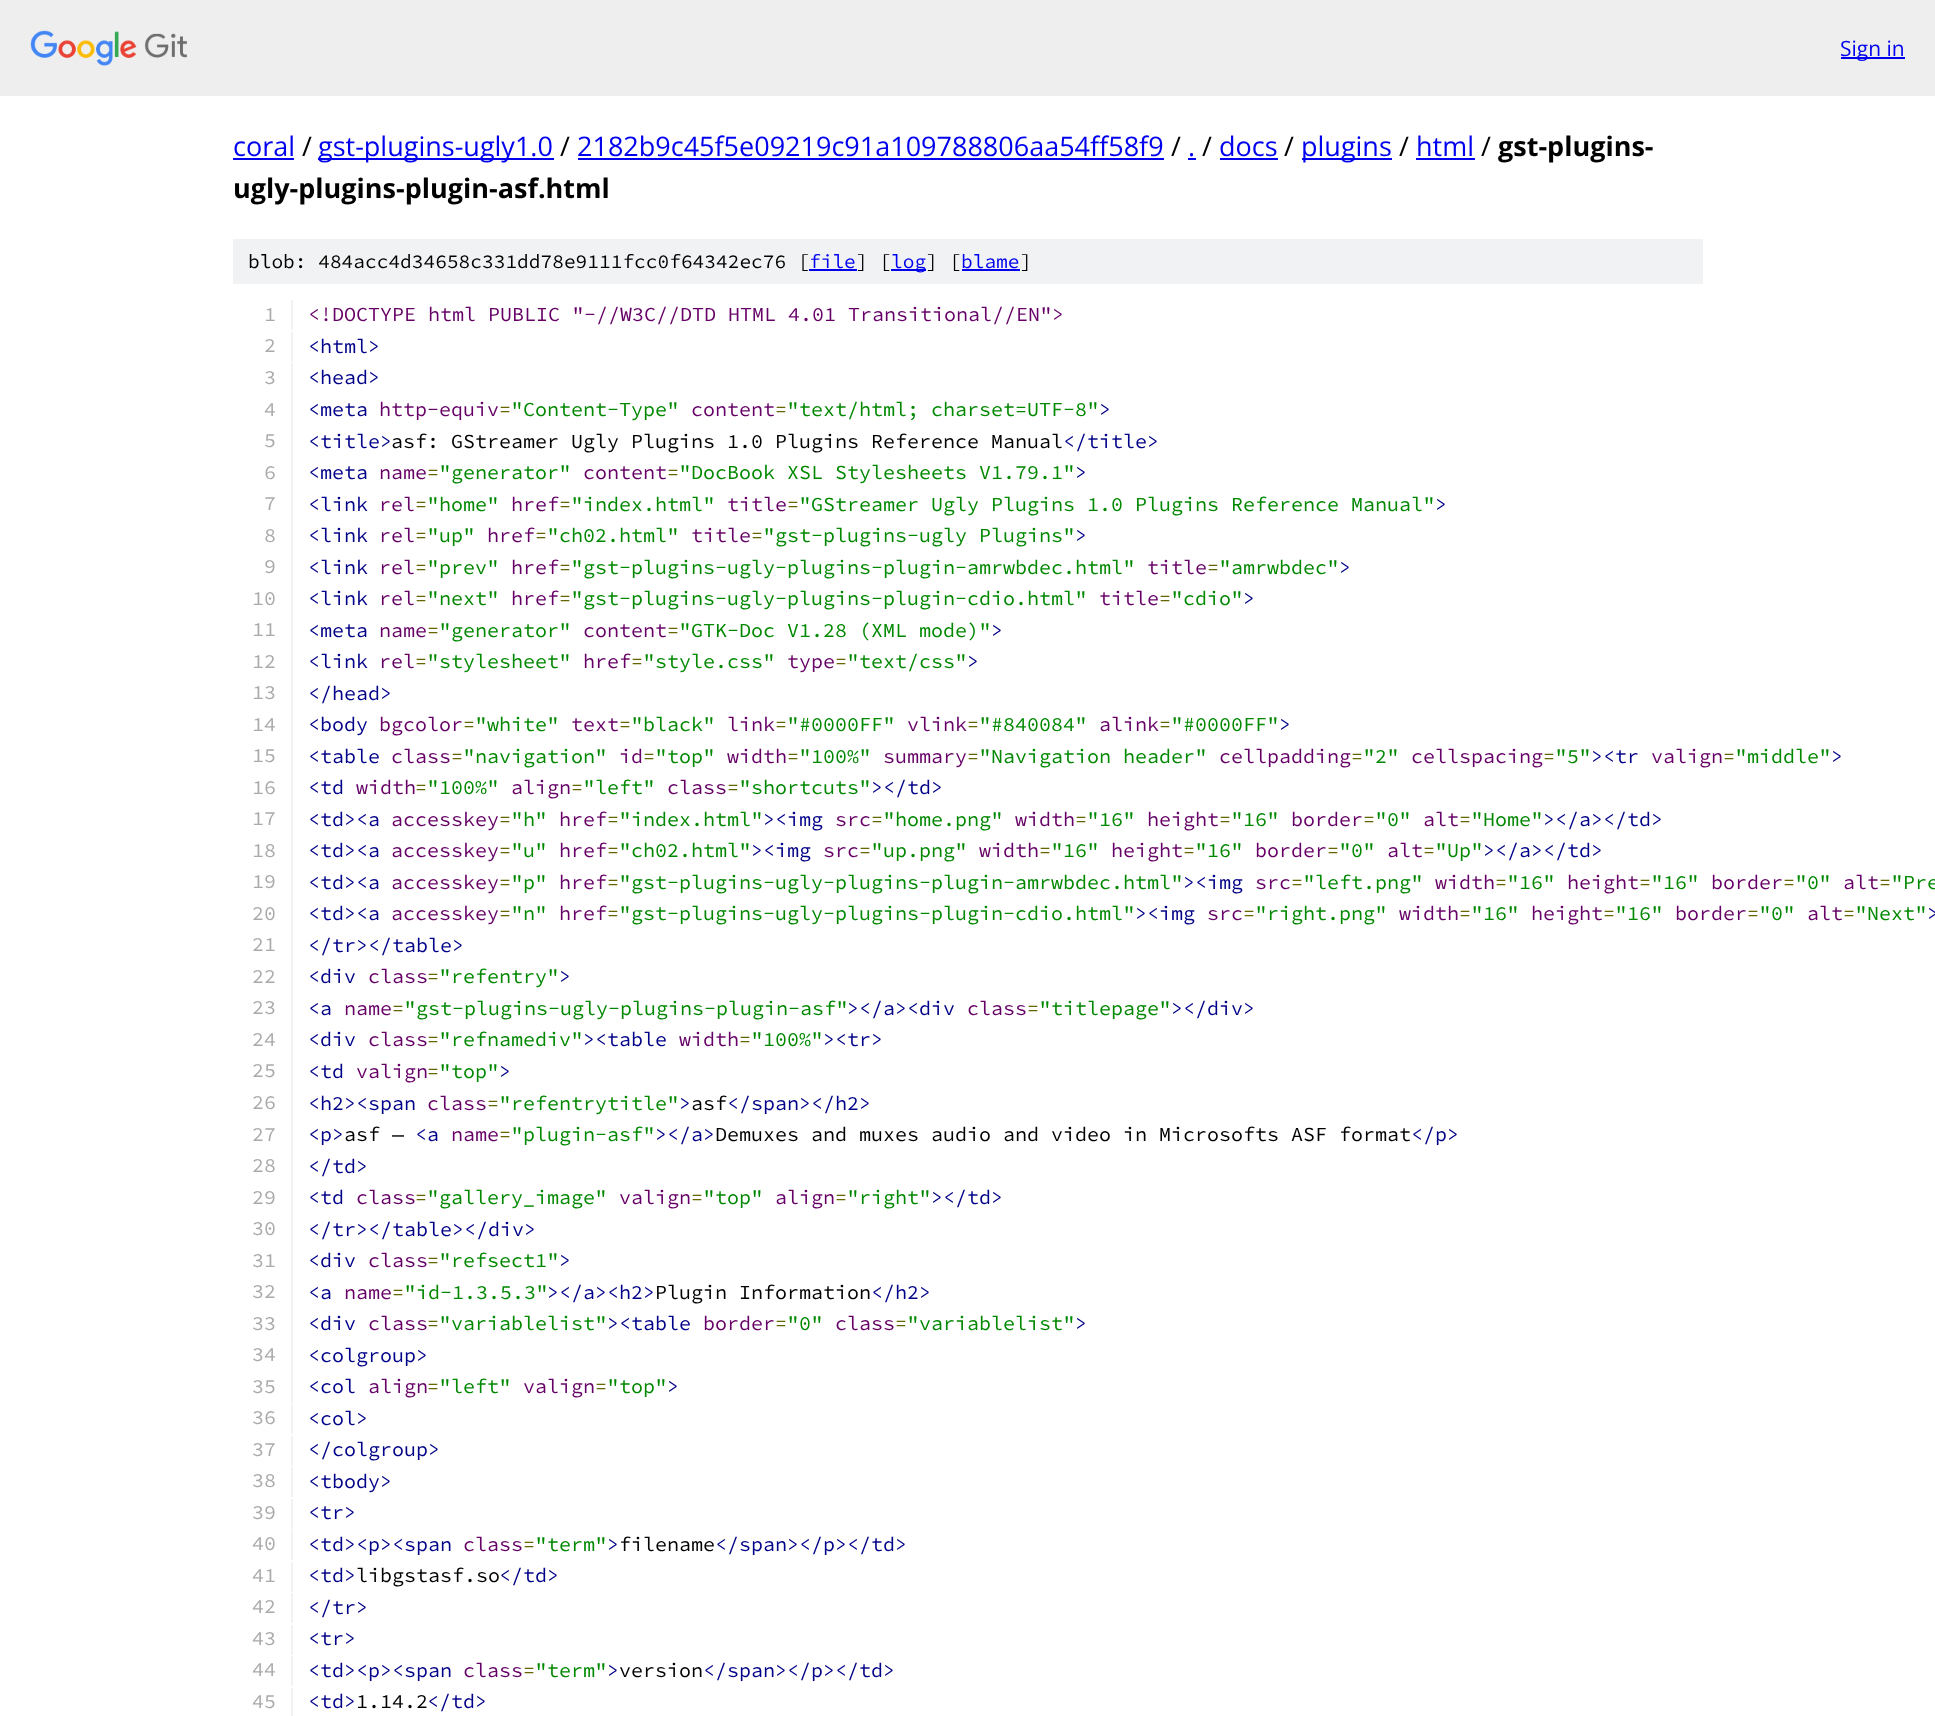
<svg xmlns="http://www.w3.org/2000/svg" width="1935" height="1716">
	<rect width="100%" height="100%" fill="#FFFFFF" />
	<rect x="0" y="0" width="1935" height="96" fill="#EEEEEE" />
	<image x="30" y="30" width="157" height="36" href="assets/img1.png" />
	<rect x="1841" y="57" width="64" height="2" fill="#0000EE" />
	<text x="1840" y="56" font-family="Open Sans" font-size="21" fill="#0000EE">Sign in</text>
	<text x="233" y="156" font-family="Open Sans" font-size="27" fill="#0000EE">coral</text>
	<rect x="233" y="158" width="61" height="2" fill="#0000EE" />
	<text x="302" y="156" font-family="Open Sans" font-size="27" fill="#000000">/</text>
	<rect x="318" y="158" width="236" height="2" fill="#0000EE" />
	<text x="318" y="156" font-family="Open Sans" font-size="27" fill="#0000EE">gst-plugins-ugly1.0</text>
	<text x="560" y="156" font-family="Open Sans" font-size="27" fill="#000000">/</text>
	<text x="577" y="156" font-family="Open Sans" font-size="27" fill="#0000EE">2182b9c45f5e09219c91a109788806aa54ff58f9</text>
	<rect x="578" y="158" width="586" height="2" fill="#0000EE" />
	<text x="1171" y="156" font-family="Open Sans" font-size="27" fill="#000000">/</text>
	<text x="1188" y="156" font-family="Open Sans" font-size="27" fill="#0000EE">.</text>
	<rect x="1188" y="158" width="8" height="2" fill="#0000EE" />
	<text x="1202" y="156" font-family="Open Sans" font-size="27" fill="#000000">/</text>
	<text x="1219" y="156" font-family="Open Sans" font-size="27" fill="#0000EE">docs</text>
	<rect x="1220" y="158" width="58" height="2" fill="#0000EE" />
	<text x="1284" y="156" font-family="Open Sans" font-size="27" fill="#000000">/</text>
	<rect x="1302" y="158" width="90" height="2" fill="#0000EE" />
	<text x="1301" y="156" font-family="Open Sans" font-size="27" fill="#0000EE">plugins</text>
	<text x="1399" y="156" font-family="Open Sans" font-size="27" fill="#000000">/</text>
	<text x="1416" y="156" font-family="Open Sans" font-size="27" fill="#0000EE">html</text>
	<rect x="1416" y="158" width="59" height="2" fill="#0000EE" />
	<text x="1481" y="156" font-family="Open Sans" font-size="27" fill="#000000">/</text>
	<g font-family="Open Sans" font-size="27" font-weight="700" fill="#000000">
		<text x="1498" y="156">gst-plugins-</text>
		<text x="233" y="198">ugly-plugins-plugin-asf.html</text>
	</g>
	<rect x="233" y="239" width="1470" height="45" fill="#F1F2F3" />
	<text x="248" y="268" font-family="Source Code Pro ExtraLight" font-size="19.5" font-weight="200" fill="#000000">blob: 484acc4d34658c331dd78e9111fcc0f64342ec76 [</text>
	<text x="809" y="268" font-family="Source Code Pro ExtraLight" font-size="19.5" font-weight="200" fill="#0000EE">file</text>
	<rect x="809" y="269" width="48" height="2" fill="#0000EE" />
	<text x="856" y="268" font-family="Source Code Pro ExtraLight" font-size="19.5" font-weight="200" fill="#000000">] [</text>
	<rect x="891" y="269" width="35" height="2" fill="#0000EE" />
	<text x="891" y="268" font-family="Source Code Pro ExtraLight" font-size="19.5" font-weight="200" fill="#0000EE">log</text>
	<text x="926" y="268" font-family="Source Code Pro ExtraLight" font-size="19.5" font-weight="200" fill="#000000">] [</text>
	<text x="961" y="268" font-family="Source Code Pro ExtraLight" font-size="19.5" font-weight="200" fill="#0000EE">blame</text>
	<rect x="962" y="269" width="58" height="2" fill="#0000EE" />
	<text x="1020" y="268" font-family="Source Code Pro ExtraLight" font-size="19.5" font-weight="200" fill="#000000">]</text>
	<rect x="291" y="300" width="2" height="30" fill="#F1F2F3" />
	<text x="264" y="321" font-family="Source Code Pro ExtraLight" font-size="20" font-weight="200" fill="#AAAAAA">1</text>
	<text x="308" y="321" font-family="Source Code Pro ExtraLight" font-size="20" font-weight="200" fill="#660066">&lt;!DOCTYPE html PUBLIC "-//W3C//DTD HTML 4.01 Transitional//EN"&gt;</text>
	<rect x="291" y="332" width="2" height="30" fill="#F1F2F3" />
	<text x="264" y="352" font-family="Source Code Pro ExtraLight" font-size="20" font-weight="200" fill="#AAAAAA">2</text>
	<text x="308" y="353" font-family="Source Code Pro ExtraLight" font-size="20" font-weight="200" fill="#000088">&lt;html&gt;</text>
	<rect x="291" y="363" width="2" height="504" fill="#F1F2F3" />
	<text x="264" y="384" font-family="Source Code Pro ExtraLight" font-size="20" font-weight="200" fill="#AAAAAA">3</text>
	<text x="308" y="384" font-family="Source Code Pro ExtraLight" font-size="20" font-weight="200" fill="#000088">&lt;head&gt;</text>
	<text x="264" y="416" font-family="Source Code Pro ExtraLight" font-size="20" font-weight="200" fill="#AAAAAA">4</text>
	<text x="308" y="416" font-family="Source Code Pro ExtraLight" font-size="20" font-weight="200" fill="#000088">&lt;meta</text>
	<text x="379" y="416" font-family="Source Code Pro ExtraLight" font-size="20" font-weight="200" fill="#660066">http-equiv</text>
	<text x="499" y="416" font-family="Source Code Pro ExtraLight" font-size="20" font-weight="200" fill="#666600">=</text>
	<text x="511" y="416" font-family="Source Code Pro ExtraLight" font-size="20" font-weight="200" fill="#008800">"Content-Type"</text>
	<text x="691" y="416" font-family="Source Code Pro ExtraLight" font-size="20" font-weight="200" fill="#660066">content</text>
	<text x="775" y="416" font-family="Source Code Pro ExtraLight" font-size="20" font-weight="200" fill="#666600">=</text>
	<text x="787" y="416" font-family="Source Code Pro ExtraLight" font-size="20" font-weight="200" fill="#008800">"text/html; charset=UTF-8"</text>
	<text x="1099" y="416" font-family="Source Code Pro ExtraLight" font-size="20" font-weight="200" fill="#000088">&gt;</text>
	<text x="264" y="447" font-family="Source Code Pro ExtraLight" font-size="20" font-weight="200" fill="#AAAAAA">5</text>
	<text x="308" y="448" font-family="Source Code Pro ExtraLight" font-size="20" font-weight="200" fill="#000088">&lt;title&gt;</text>
	<text x="391" y="448" font-family="Source Code Pro ExtraLight" font-size="20" font-weight="200" fill="#000000">asf: GStreamer Ugly Plugins 1.0 Plugins Reference Manual</text>
	<text x="1063" y="448" font-family="Source Code Pro ExtraLight" font-size="20" font-weight="200" fill="#000088">&lt;/title&gt;</text>
	<text x="264" y="479" font-family="Source Code Pro ExtraLight" font-size="20" font-weight="200" fill="#AAAAAA">6</text>
	<text x="308" y="479" font-family="Source Code Pro ExtraLight" font-size="20" font-weight="200" fill="#000088">&lt;meta</text>
	<text x="379" y="479" font-family="Source Code Pro ExtraLight" font-size="20" font-weight="200" fill="#660066">name</text>
	<text x="427" y="479" font-family="Source Code Pro ExtraLight" font-size="20" font-weight="200" fill="#666600">=</text>
	<text x="439" y="479" font-family="Source Code Pro ExtraLight" font-size="20" font-weight="200" fill="#008800">"generator"</text>
	<text x="583" y="479" font-family="Source Code Pro ExtraLight" font-size="20" font-weight="200" fill="#660066">content</text>
	<text x="667" y="479" font-family="Source Code Pro ExtraLight" font-size="20" font-weight="200" fill="#666600">=</text>
	<text x="679" y="479" font-family="Source Code Pro ExtraLight" font-size="20" font-weight="200" fill="#008800">"DocBook XSL Stylesheets V1.79.1"</text>
	<text x="1075" y="479" font-family="Source Code Pro ExtraLight" font-size="20" font-weight="200" fill="#000088">&gt;</text>
	<text x="264" y="510" font-family="Source Code Pro ExtraLight" font-size="20" font-weight="200" fill="#AAAAAA">7</text>
	<text x="308" y="511" font-family="Source Code Pro ExtraLight" font-size="20" font-weight="200" fill="#000088">&lt;link</text>
	<text x="379" y="511" font-family="Source Code Pro ExtraLight" font-size="20" font-weight="200" fill="#660066">rel</text>
	<text x="415" y="511" font-family="Source Code Pro ExtraLight" font-size="20" font-weight="200" fill="#666600">=</text>
	<text x="427" y="511" font-family="Source Code Pro ExtraLight" font-size="20" font-weight="200" fill="#008800">"home"</text>
	<text x="511" y="511" font-family="Source Code Pro ExtraLight" font-size="20" font-weight="200" fill="#660066">href</text>
	<text x="559" y="511" font-family="Source Code Pro ExtraLight" font-size="20" font-weight="200" fill="#666600">=</text>
	<text x="571" y="511" font-family="Source Code Pro ExtraLight" font-size="20" font-weight="200" fill="#008800">"index.html"</text>
	<text x="727" y="511" font-family="Source Code Pro ExtraLight" font-size="20" font-weight="200" fill="#660066">title</text>
	<text x="787" y="511" font-family="Source Code Pro ExtraLight" font-size="20" font-weight="200" fill="#666600">=</text>
	<text x="799" y="511" font-family="Source Code Pro ExtraLight" font-size="20" font-weight="200" fill="#008800">"GStreamer Ugly Plugins 1.0 Plugins Reference Manual"</text>
	<text x="1435" y="511" font-family="Source Code Pro ExtraLight" font-size="20" font-weight="200" fill="#000088">&gt;</text>
	<text x="264" y="542" font-family="Source Code Pro ExtraLight" font-size="20" font-weight="200" fill="#AAAAAA">8</text>
	<text x="308" y="542" font-family="Source Code Pro ExtraLight" font-size="20" font-weight="200" fill="#000088">&lt;link</text>
	<text x="379" y="542" font-family="Source Code Pro ExtraLight" font-size="20" font-weight="200" fill="#660066">rel</text>
	<text x="415" y="542" font-family="Source Code Pro ExtraLight" font-size="20" font-weight="200" fill="#666600">=</text>
	<text x="427" y="542" font-family="Source Code Pro ExtraLight" font-size="20" font-weight="200" fill="#008800">"up"</text>
	<text x="487" y="542" font-family="Source Code Pro ExtraLight" font-size="20" font-weight="200" fill="#660066">href</text>
	<text x="535" y="542" font-family="Source Code Pro ExtraLight" font-size="20" font-weight="200" fill="#666600">=</text>
	<text x="547" y="542" font-family="Source Code Pro ExtraLight" font-size="20" font-weight="200" fill="#008800">"ch02.html"</text>
	<text x="691" y="542" font-family="Source Code Pro ExtraLight" font-size="20" font-weight="200" fill="#660066">title</text>
	<text x="751" y="542" font-family="Source Code Pro ExtraLight" font-size="20" font-weight="200" fill="#666600">=</text>
	<text x="763" y="542" font-family="Source Code Pro ExtraLight" font-size="20" font-weight="200" fill="#008800">"gst-plugins-ugly Plugins"</text>
	<text x="1075" y="542" font-family="Source Code Pro ExtraLight" font-size="20" font-weight="200" fill="#000088">&gt;</text>
	<text x="264" y="573" font-family="Source Code Pro ExtraLight" font-size="20" font-weight="200" fill="#AAAAAA">9</text>
	<text x="308" y="574" font-family="Source Code Pro ExtraLight" font-size="20" font-weight="200" fill="#000088">&lt;link</text>
	<text x="379" y="574" font-family="Source Code Pro ExtraLight" font-size="20" font-weight="200" fill="#660066">rel</text>
	<text x="415" y="574" font-family="Source Code Pro ExtraLight" font-size="20" font-weight="200" fill="#666600">=</text>
	<text x="427" y="574" font-family="Source Code Pro ExtraLight" font-size="20" font-weight="200" fill="#008800">"prev"</text>
	<text x="511" y="574" font-family="Source Code Pro ExtraLight" font-size="20" font-weight="200" fill="#660066">href</text>
	<text x="559" y="574" font-family="Source Code Pro ExtraLight" font-size="20" font-weight="200" fill="#666600">=</text>
	<text x="571" y="574" font-family="Source Code Pro ExtraLight" font-size="20" font-weight="200" fill="#008800">"gst-plugins-ugly-plugins-plugin-amrwbdec.html"</text>
	<text x="1147" y="574" font-family="Source Code Pro ExtraLight" font-size="20" font-weight="200" fill="#660066">title</text>
	<text x="1207" y="574" font-family="Source Code Pro ExtraLight" font-size="20" font-weight="200" fill="#666600">=</text>
	<text x="1219" y="574" font-family="Source Code Pro ExtraLight" font-size="20" font-weight="200" fill="#008800">"amrwbdec"</text>
	<text x="1339" y="574" font-family="Source Code Pro ExtraLight" font-size="20" font-weight="200" fill="#000088">&gt;</text>
	<text x="252" y="605" font-family="Source Code Pro ExtraLight" font-size="20" font-weight="200" fill="#AAAAAA">10</text>
	<text x="308" y="605" font-family="Source Code Pro ExtraLight" font-size="20" font-weight="200" fill="#000088">&lt;link</text>
	<text x="379" y="605" font-family="Source Code Pro ExtraLight" font-size="20" font-weight="200" fill="#660066">rel</text>
	<text x="415" y="605" font-family="Source Code Pro ExtraLight" font-size="20" font-weight="200" fill="#666600">=</text>
	<text x="427" y="605" font-family="Source Code Pro ExtraLight" font-size="20" font-weight="200" fill="#008800">"next"</text>
	<text x="511" y="605" font-family="Source Code Pro ExtraLight" font-size="20" font-weight="200" fill="#660066">href</text>
	<text x="559" y="605" font-family="Source Code Pro ExtraLight" font-size="20" font-weight="200" fill="#666600">=</text>
	<text x="571" y="605" font-family="Source Code Pro ExtraLight" font-size="20" font-weight="200" fill="#008800">"gst-plugins-ugly-plugins-plugin-cdio.html"</text>
	<text x="1099" y="605" font-family="Source Code Pro ExtraLight" font-size="20" font-weight="200" fill="#660066">title</text>
	<text x="1159" y="605" font-family="Source Code Pro ExtraLight" font-size="20" font-weight="200" fill="#666600">=</text>
	<text x="1171" y="605" font-family="Source Code Pro ExtraLight" font-size="20" font-weight="200" fill="#008800">"cdio"</text>
	<text x="1243" y="605" font-family="Source Code Pro ExtraLight" font-size="20" font-weight="200" fill="#000088">&gt;</text>
	<text x="252" y="636" font-family="Source Code Pro ExtraLight" font-size="20" font-weight="200" fill="#AAAAAA">11</text>
	<text x="308" y="637" font-family="Source Code Pro ExtraLight" font-size="20" font-weight="200" fill="#000088">&lt;meta</text>
	<text x="379" y="637" font-family="Source Code Pro ExtraLight" font-size="20" font-weight="200" fill="#660066">name</text>
	<text x="427" y="637" font-family="Source Code Pro ExtraLight" font-size="20" font-weight="200" fill="#666600">=</text>
	<text x="439" y="637" font-family="Source Code Pro ExtraLight" font-size="20" font-weight="200" fill="#008800">"generator"</text>
	<text x="583" y="637" font-family="Source Code Pro ExtraLight" font-size="20" font-weight="200" fill="#660066">content</text>
	<text x="667" y="637" font-family="Source Code Pro ExtraLight" font-size="20" font-weight="200" fill="#666600">=</text>
	<text x="679" y="637" font-family="Source Code Pro ExtraLight" font-size="20" font-weight="200" fill="#008800">"GTK-Doc V1.28 (XML mode)"</text>
	<text x="991" y="637" font-family="Source Code Pro ExtraLight" font-size="20" font-weight="200" fill="#000088">&gt;</text>
	<text x="252" y="668" font-family="Source Code Pro ExtraLight" font-size="20" font-weight="200" fill="#AAAAAA">12</text>
	<text x="308" y="668" font-family="Source Code Pro ExtraLight" font-size="20" font-weight="200" fill="#000088">&lt;link</text>
	<text x="379" y="668" font-family="Source Code Pro ExtraLight" font-size="20" font-weight="200" fill="#660066">rel</text>
	<text x="415" y="668" font-family="Source Code Pro ExtraLight" font-size="20" font-weight="200" fill="#666600">=</text>
	<text x="427" y="668" font-family="Source Code Pro ExtraLight" font-size="20" font-weight="200" fill="#008800">"stylesheet"</text>
	<text x="583" y="668" font-family="Source Code Pro ExtraLight" font-size="20" font-weight="200" fill="#660066">href</text>
	<text x="631" y="668" font-family="Source Code Pro ExtraLight" font-size="20" font-weight="200" fill="#666600">=</text>
	<text x="643" y="668" font-family="Source Code Pro ExtraLight" font-size="20" font-weight="200" fill="#008800">"style.css"</text>
	<text x="787" y="668" font-family="Source Code Pro ExtraLight" font-size="20" font-weight="200" fill="#660066">type</text>
	<text x="835" y="668" font-family="Source Code Pro ExtraLight" font-size="20" font-weight="200" fill="#666600">=</text>
	<text x="847" y="668" font-family="Source Code Pro ExtraLight" font-size="20" font-weight="200" fill="#008800">"text/css"</text>
	<text x="967" y="668" font-family="Source Code Pro ExtraLight" font-size="20" font-weight="200" fill="#000088">&gt;</text>
	<text x="252" y="699" font-family="Source Code Pro ExtraLight" font-size="20" font-weight="200" fill="#AAAAAA">13</text>
	<text x="308" y="700" font-family="Source Code Pro ExtraLight" font-size="20" font-weight="200" fill="#000088">&lt;/head&gt;</text>
	<text x="252" y="731" font-family="Source Code Pro ExtraLight" font-size="20" font-weight="200" fill="#AAAAAA">14</text>
	<text x="308" y="731" font-family="Source Code Pro ExtraLight" font-size="20" font-weight="200" fill="#000088">&lt;body</text>
	<text x="379" y="731" font-family="Source Code Pro ExtraLight" font-size="20" font-weight="200" fill="#660066">bgcolor</text>
	<text x="463" y="731" font-family="Source Code Pro ExtraLight" font-size="20" font-weight="200" fill="#666600">=</text>
	<text x="475" y="731" font-family="Source Code Pro ExtraLight" font-size="20" font-weight="200" fill="#008800">"white"</text>
	<text x="571" y="731" font-family="Source Code Pro ExtraLight" font-size="20" font-weight="200" fill="#660066">text</text>
	<text x="619" y="731" font-family="Source Code Pro ExtraLight" font-size="20" font-weight="200" fill="#666600">=</text>
	<text x="631" y="731" font-family="Source Code Pro ExtraLight" font-size="20" font-weight="200" fill="#008800">"black"</text>
	<text x="727" y="731" font-family="Source Code Pro ExtraLight" font-size="20" font-weight="200" fill="#660066">link</text>
	<text x="775" y="731" font-family="Source Code Pro ExtraLight" font-size="20" font-weight="200" fill="#666600">=</text>
	<text x="787" y="731" font-family="Source Code Pro ExtraLight" font-size="20" font-weight="200" fill="#008800">"#0000FF"</text>
	<text x="907" y="731" font-family="Source Code Pro ExtraLight" font-size="20" font-weight="200" fill="#660066">vlink</text>
	<text x="967" y="731" font-family="Source Code Pro ExtraLight" font-size="20" font-weight="200" fill="#666600">=</text>
	<text x="979" y="731" font-family="Source Code Pro ExtraLight" font-size="20" font-weight="200" fill="#008800">"#840084"</text>
	<text x="1099" y="731" font-family="Source Code Pro ExtraLight" font-size="20" font-weight="200" fill="#660066">alink</text>
	<text x="1159" y="731" font-family="Source Code Pro ExtraLight" font-size="20" font-weight="200" fill="#666600">=</text>
	<text x="1171" y="731" font-family="Source Code Pro ExtraLight" font-size="20" font-weight="200" fill="#008800">"#0000FF"</text>
	<text x="1279" y="731" font-family="Source Code Pro ExtraLight" font-size="20" font-weight="200" fill="#000088">&gt;</text>
	<text x="252" y="762" font-family="Source Code Pro ExtraLight" font-size="20" font-weight="200" fill="#AAAAAA">15</text>
	<text x="308" y="763" font-family="Source Code Pro ExtraLight" font-size="20" font-weight="200" fill="#000088">&lt;table</text>
	<text x="391" y="763" font-family="Source Code Pro ExtraLight" font-size="20" font-weight="200" fill="#660066">class</text>
	<text x="451" y="763" font-family="Source Code Pro ExtraLight" font-size="20" font-weight="200" fill="#666600">=</text>
	<text x="463" y="763" font-family="Source Code Pro ExtraLight" font-size="20" font-weight="200" fill="#008800">"navigation"</text>
	<text x="619" y="763" font-family="Source Code Pro ExtraLight" font-size="20" font-weight="200" fill="#660066">id</text>
	<text x="643" y="763" font-family="Source Code Pro ExtraLight" font-size="20" font-weight="200" fill="#666600">=</text>
	<text x="655" y="763" font-family="Source Code Pro ExtraLight" font-size="20" font-weight="200" fill="#008800">"top"</text>
	<text x="727" y="763" font-family="Source Code Pro ExtraLight" font-size="20" font-weight="200" fill="#660066">width</text>
	<text x="787" y="763" font-family="Source Code Pro ExtraLight" font-size="20" font-weight="200" fill="#666600">=</text>
	<text x="799" y="763" font-family="Source Code Pro ExtraLight" font-size="20" font-weight="200" fill="#008800">"100%"</text>
	<text x="883" y="763" font-family="Source Code Pro ExtraLight" font-size="20" font-weight="200" fill="#660066">summary</text>
	<text x="967" y="763" font-family="Source Code Pro ExtraLight" font-size="20" font-weight="200" fill="#666600">=</text>
	<text x="979" y="763" font-family="Source Code Pro ExtraLight" font-size="20" font-weight="200" fill="#008800">"Navigation header"</text>
	<text x="1219" y="763" font-family="Source Code Pro ExtraLight" font-size="20" font-weight="200" fill="#660066">cellpadding</text>
	<text x="1351" y="763" font-family="Source Code Pro ExtraLight" font-size="20" font-weight="200" fill="#666600">=</text>
	<text x="1363" y="763" font-family="Source Code Pro ExtraLight" font-size="20" font-weight="200" fill="#008800">"2"</text>
	<text x="1411" y="763" font-family="Source Code Pro ExtraLight" font-size="20" font-weight="200" fill="#660066">cellspacing</text>
	<text x="1543" y="763" font-family="Source Code Pro ExtraLight" font-size="20" font-weight="200" fill="#666600">=</text>
	<text x="1555" y="763" font-family="Source Code Pro ExtraLight" font-size="20" font-weight="200" fill="#008800">"5"</text>
	<text x="1591" y="763" font-family="Source Code Pro ExtraLight" font-size="20" font-weight="200" fill="#000088">&gt;&lt;tr</text>
	<text x="1651" y="763" font-family="Source Code Pro ExtraLight" font-size="20" font-weight="200" fill="#660066">valign</text>
	<text x="1723" y="763" font-family="Source Code Pro ExtraLight" font-size="20" font-weight="200" fill="#666600">=</text>
	<text x="1735" y="763" font-family="Source Code Pro ExtraLight" font-size="20" font-weight="200" fill="#008800">"middle"</text>
	<text x="1831" y="763" font-family="Source Code Pro ExtraLight" font-size="20" font-weight="200" fill="#000088">&gt;</text>
	<text x="252" y="794" font-family="Source Code Pro ExtraLight" font-size="20" font-weight="200" fill="#AAAAAA">16</text>
	<text x="308" y="794" font-family="Source Code Pro ExtraLight" font-size="20" font-weight="200" fill="#000088">&lt;td</text>
	<text x="356" y="794" font-family="Source Code Pro ExtraLight" font-size="20" font-weight="200" fill="#660066">width</text>
	<text x="415" y="794" font-family="Source Code Pro ExtraLight" font-size="20" font-weight="200" fill="#666600">=</text>
	<text x="427" y="794" font-family="Source Code Pro ExtraLight" font-size="20" font-weight="200" fill="#008800">"100%"</text>
	<text x="511" y="794" font-family="Source Code Pro ExtraLight" font-size="20" font-weight="200" fill="#660066">align</text>
	<text x="571" y="794" font-family="Source Code Pro ExtraLight" font-size="20" font-weight="200" fill="#666600">=</text>
	<text x="583" y="794" font-family="Source Code Pro ExtraLight" font-size="20" font-weight="200" fill="#008800">"left"</text>
	<text x="667" y="794" font-family="Source Code Pro ExtraLight" font-size="20" font-weight="200" fill="#660066">class</text>
	<text x="727" y="794" font-family="Source Code Pro ExtraLight" font-size="20" font-weight="200" fill="#666600">=</text>
	<text x="739" y="794" font-family="Source Code Pro ExtraLight" font-size="20" font-weight="200" fill="#008800">"shortcuts"</text>
	<text x="871" y="794" font-family="Source Code Pro ExtraLight" font-size="20" font-weight="200" fill="#000088">&gt;&lt;/td&gt;</text>
	<text x="252" y="825" font-family="Source Code Pro ExtraLight" font-size="20" font-weight="200" fill="#AAAAAA">17</text>
	<text x="308" y="826" font-family="Source Code Pro ExtraLight" font-size="20" font-weight="200" fill="#000088">&lt;td&gt;&lt;a</text>
	<text x="391" y="826" font-family="Source Code Pro ExtraLight" font-size="20" font-weight="200" fill="#660066">accesskey</text>
	<text x="499" y="826" font-family="Source Code Pro ExtraLight" font-size="20" font-weight="200" fill="#666600">=</text>
	<text x="511" y="826" font-family="Source Code Pro ExtraLight" font-size="20" font-weight="200" fill="#008800">"h"</text>
	<text x="559" y="826" font-family="Source Code Pro ExtraLight" font-size="20" font-weight="200" fill="#660066">href</text>
	<text x="607" y="826" font-family="Source Code Pro ExtraLight" font-size="20" font-weight="200" fill="#666600">=</text>
	<text x="619" y="826" font-family="Source Code Pro ExtraLight" font-size="20" font-weight="200" fill="#008800">"index.html"</text>
	<text x="763" y="826" font-family="Source Code Pro ExtraLight" font-size="20" font-weight="200" fill="#000088">&gt;&lt;img</text>
	<text x="835" y="826" font-family="Source Code Pro ExtraLight" font-size="20" font-weight="200" fill="#660066">src</text>
	<text x="871" y="826" font-family="Source Code Pro ExtraLight" font-size="20" font-weight="200" fill="#666600">=</text>
	<text x="883" y="826" font-family="Source Code Pro ExtraLight" font-size="20" font-weight="200" fill="#008800">"home.png"</text>
	<text x="1015" y="826" font-family="Source Code Pro ExtraLight" font-size="20" font-weight="200" fill="#660066">width</text>
	<text x="1075" y="826" font-family="Source Code Pro ExtraLight" font-size="20" font-weight="200" fill="#666600">=</text>
	<text x="1087" y="826" font-family="Source Code Pro ExtraLight" font-size="20" font-weight="200" fill="#008800">"16"</text>
	<text x="1147" y="826" font-family="Source Code Pro ExtraLight" font-size="20" font-weight="200" fill="#660066">height</text>
	<text x="1219" y="826" font-family="Source Code Pro ExtraLight" font-size="20" font-weight="200" fill="#666600">=</text>
	<text x="1231" y="826" font-family="Source Code Pro ExtraLight" font-size="20" font-weight="200" fill="#008800">"16"</text>
	<text x="1291" y="826" font-family="Source Code Pro ExtraLight" font-size="20" font-weight="200" fill="#660066">border</text>
	<text x="1363" y="826" font-family="Source Code Pro ExtraLight" font-size="20" font-weight="200" fill="#666600">=</text>
	<text x="1375" y="826" font-family="Source Code Pro ExtraLight" font-size="20" font-weight="200" fill="#008800">"0"</text>
	<text x="1423" y="826" font-family="Source Code Pro ExtraLight" font-size="20" font-weight="200" fill="#660066">alt</text>
	<text x="1459" y="826" font-family="Source Code Pro ExtraLight" font-size="20" font-weight="200" fill="#666600">=</text>
	<text x="1471" y="826" font-family="Source Code Pro ExtraLight" font-size="20" font-weight="200" fill="#008800">"Home"</text>
	<text x="1543" y="826" font-family="Source Code Pro ExtraLight" font-size="20" font-weight="200" fill="#000088">&gt;&lt;/a&gt;&lt;/td&gt;</text>
	<text x="252" y="857" font-family="Source Code Pro ExtraLight" font-size="20" font-weight="200" fill="#AAAAAA">18</text>
	<text x="308" y="857" font-family="Source Code Pro ExtraLight" font-size="20" font-weight="200" fill="#000088">&lt;td&gt;&lt;a</text>
	<text x="391" y="857" font-family="Source Code Pro ExtraLight" font-size="20" font-weight="200" fill="#660066">accesskey</text>
	<text x="499" y="857" font-family="Source Code Pro ExtraLight" font-size="20" font-weight="200" fill="#666600">=</text>
	<text x="511" y="857" font-family="Source Code Pro ExtraLight" font-size="20" font-weight="200" fill="#008800">"u"</text>
	<text x="559" y="857" font-family="Source Code Pro ExtraLight" font-size="20" font-weight="200" fill="#660066">href</text>
	<text x="607" y="857" font-family="Source Code Pro ExtraLight" font-size="20" font-weight="200" fill="#666600">=</text>
	<text x="619" y="857" font-family="Source Code Pro ExtraLight" font-size="20" font-weight="200" fill="#008800">"ch02.html"</text>
	<text x="751" y="857" font-family="Source Code Pro ExtraLight" font-size="20" font-weight="200" fill="#000088">&gt;&lt;img</text>
	<text x="823" y="857" font-family="Source Code Pro ExtraLight" font-size="20" font-weight="200" fill="#660066">src</text>
	<text x="859" y="857" font-family="Source Code Pro ExtraLight" font-size="20" font-weight="200" fill="#666600">=</text>
	<text x="871" y="857" font-family="Source Code Pro ExtraLight" font-size="20" font-weight="200" fill="#008800">"up.png"</text>
	<text x="979" y="857" font-family="Source Code Pro ExtraLight" font-size="20" font-weight="200" fill="#660066">width</text>
	<text x="1039" y="857" font-family="Source Code Pro ExtraLight" font-size="20" font-weight="200" fill="#666600">=</text>
	<text x="1051" y="857" font-family="Source Code Pro ExtraLight" font-size="20" font-weight="200" fill="#008800">"16"</text>
	<text x="1111" y="857" font-family="Source Code Pro ExtraLight" font-size="20" font-weight="200" fill="#660066">height</text>
	<text x="1183" y="857" font-family="Source Code Pro ExtraLight" font-size="20" font-weight="200" fill="#666600">=</text>
	<text x="1195" y="857" font-family="Source Code Pro ExtraLight" font-size="20" font-weight="200" fill="#008800">"16"</text>
	<text x="1255" y="857" font-family="Source Code Pro ExtraLight" font-size="20" font-weight="200" fill="#660066">border</text>
	<text x="1327" y="857" font-family="Source Code Pro ExtraLight" font-size="20" font-weight="200" fill="#666600">=</text>
	<text x="1339" y="857" font-family="Source Code Pro ExtraLight" font-size="20" font-weight="200" fill="#008800">"0"</text>
	<text x="1387" y="857" font-family="Source Code Pro ExtraLight" font-size="20" font-weight="200" fill="#660066">alt</text>
	<text x="1423" y="857" font-family="Source Code Pro ExtraLight" font-size="20" font-weight="200" fill="#666600">=</text>
	<text x="1435" y="857" font-family="Source Code Pro ExtraLight" font-size="20" font-weight="200" fill="#008800">"Up"</text>
	<text x="1483" y="857" font-family="Source Code Pro ExtraLight" font-size="20" font-weight="200" fill="#000088">&gt;&lt;/a&gt;&lt;/td&gt;</text>
	<rect x="291" y="867" width="2" height="536" fill="#F1F2F3" />
	<text x="252" y="888" font-family="Source Code Pro ExtraLight" font-size="20" font-weight="200" fill="#AAAAAA">19</text>
	<text x="308" y="889" font-family="Source Code Pro ExtraLight" font-size="20" font-weight="200" fill="#000088">&lt;td&gt;&lt;a</text>
	<text x="391" y="889" font-family="Source Code Pro ExtraLight" font-size="20" font-weight="200" fill="#660066">accesskey</text>
	<text x="499" y="889" font-family="Source Code Pro ExtraLight" font-size="20" font-weight="200" fill="#666600">=</text>
	<text x="511" y="889" font-family="Source Code Pro ExtraLight" font-size="20" font-weight="200" fill="#008800">"p"</text>
	<text x="559" y="889" font-family="Source Code Pro ExtraLight" font-size="20" font-weight="200" fill="#660066">href</text>
	<text x="607" y="889" font-family="Source Code Pro ExtraLight" font-size="20" font-weight="200" fill="#666600">=</text>
	<text x="619" y="889" font-family="Source Code Pro ExtraLight" font-size="20" font-weight="200" fill="#008800">"gst-plugins-ugly-plugins-plugin-amrwbdec.html"</text>
	<text x="1183" y="889" font-family="Source Code Pro ExtraLight" font-size="20" font-weight="200" fill="#000088">&gt;&lt;img</text>
	<text x="1255" y="889" font-family="Source Code Pro ExtraLight" font-size="20" font-weight="200" fill="#660066">src</text>
	<text x="1291" y="889" font-family="Source Code Pro ExtraLight" font-size="20" font-weight="200" fill="#666600">=</text>
	<text x="1303" y="889" font-family="Source Code Pro ExtraLight" font-size="20" font-weight="200" fill="#008800">"left.png"</text>
	<text x="1435" y="889" font-family="Source Code Pro ExtraLight" font-size="20" font-weight="200" fill="#660066">width</text>
	<text x="1495" y="889" font-family="Source Code Pro ExtraLight" font-size="20" font-weight="200" fill="#666600">=</text>
	<text x="1507" y="889" font-family="Source Code Pro ExtraLight" font-size="20" font-weight="200" fill="#008800">"16"</text>
	<text x="1567" y="889" font-family="Source Code Pro ExtraLight" font-size="20" font-weight="200" fill="#660066">height</text>
	<text x="1639" y="889" font-family="Source Code Pro ExtraLight" font-size="20" font-weight="200" fill="#666600">=</text>
	<text x="1651" y="889" font-family="Source Code Pro ExtraLight" font-size="20" font-weight="200" fill="#008800">"16"</text>
	<text x="1711" y="889" font-family="Source Code Pro ExtraLight" font-size="20" font-weight="200" fill="#660066">border</text>
	<text x="1783" y="889" font-family="Source Code Pro ExtraLight" font-size="20" font-weight="200" fill="#666600">=</text>
	<text x="1795" y="889" font-family="Source Code Pro ExtraLight" font-size="20" font-weight="200" fill="#008800">"0"</text>
	<text x="1843" y="889" font-family="Source Code Pro ExtraLight" font-size="20" font-weight="200" fill="#660066">alt</text>
	<text x="1879" y="889" font-family="Source Code Pro ExtraLight" font-size="20" font-weight="200" fill="#666600">=</text>
	<text x="1891" y="889" font-family="Source Code Pro ExtraLight" font-size="20" font-weight="200" fill="#008800">"Pre</text>
	<text x="252" y="920" font-family="Source Code Pro ExtraLight" font-size="20" font-weight="200" fill="#AAAAAA">20</text>
	<text x="308" y="920" font-family="Source Code Pro ExtraLight" font-size="20" font-weight="200" fill="#000088">&lt;td&gt;&lt;a</text>
	<text x="391" y="920" font-family="Source Code Pro ExtraLight" font-size="20" font-weight="200" fill="#660066">accesskey</text>
	<text x="499" y="920" font-family="Source Code Pro ExtraLight" font-size="20" font-weight="200" fill="#666600">=</text>
	<text x="511" y="920" font-family="Source Code Pro ExtraLight" font-size="20" font-weight="200" fill="#008800">"n"</text>
	<text x="559" y="920" font-family="Source Code Pro ExtraLight" font-size="20" font-weight="200" fill="#660066">href</text>
	<text x="607" y="920" font-family="Source Code Pro ExtraLight" font-size="20" font-weight="200" fill="#666600">=</text>
	<text x="619" y="920" font-family="Source Code Pro ExtraLight" font-size="20" font-weight="200" fill="#008800">"gst-plugins-ugly-plugins-plugin-cdio.html"</text>
	<text x="1135" y="920" font-family="Source Code Pro ExtraLight" font-size="20" font-weight="200" fill="#000088">&gt;&lt;img</text>
	<text x="1207" y="920" font-family="Source Code Pro ExtraLight" font-size="20" font-weight="200" fill="#660066">src</text>
	<text x="1243" y="920" font-family="Source Code Pro ExtraLight" font-size="20" font-weight="200" fill="#666600">=</text>
	<text x="1255" y="920" font-family="Source Code Pro ExtraLight" font-size="20" font-weight="200" fill="#008800">"right.png"</text>
	<text x="1399" y="920" font-family="Source Code Pro ExtraLight" font-size="20" font-weight="200" fill="#660066">width</text>
	<text x="1459" y="920" font-family="Source Code Pro ExtraLight" font-size="20" font-weight="200" fill="#666600">=</text>
	<text x="1471" y="920" font-family="Source Code Pro ExtraLight" font-size="20" font-weight="200" fill="#008800">"16"</text>
	<text x="1531" y="920" font-family="Source Code Pro ExtraLight" font-size="20" font-weight="200" fill="#660066">height</text>
	<text x="1603" y="920" font-family="Source Code Pro ExtraLight" font-size="20" font-weight="200" fill="#666600">=</text>
	<text x="1615" y="920" font-family="Source Code Pro ExtraLight" font-size="20" font-weight="200" fill="#008800">"16"</text>
	<text x="1675" y="920" font-family="Source Code Pro ExtraLight" font-size="20" font-weight="200" fill="#660066">border</text>
	<text x="1747" y="920" font-family="Source Code Pro ExtraLight" font-size="20" font-weight="200" fill="#666600">=</text>
	<text x="1759" y="920" font-family="Source Code Pro ExtraLight" font-size="20" font-weight="200" fill="#008800">"0"</text>
	<text x="1807" y="920" font-family="Source Code Pro ExtraLight" font-size="20" font-weight="200" fill="#660066">alt</text>
	<text x="1843" y="920" font-family="Source Code Pro ExtraLight" font-size="20" font-weight="200" fill="#666600">=</text>
	<text x="1855" y="920" font-family="Source Code Pro ExtraLight" font-size="20" font-weight="200" fill="#008800">"Next"</text>
	<text x="1927" y="920" font-family="Source Code Pro ExtraLight" font-size="20" font-weight="200" fill="#000088">&gt;</text>
	<text x="252" y="951" font-family="Source Code Pro ExtraLight" font-size="20" font-weight="200" fill="#AAAAAA">21</text>
	<text x="308" y="952" font-family="Source Code Pro ExtraLight" font-size="20" font-weight="200" fill="#000088">&lt;/tr&gt;&lt;/table&gt;</text>
	<text x="252" y="983" font-family="Source Code Pro ExtraLight" font-size="20" font-weight="200" fill="#AAAAAA">22</text>
	<text x="308" y="983" font-family="Source Code Pro ExtraLight" font-size="20" font-weight="200" fill="#000088">&lt;div</text>
	<text x="368" y="983" font-family="Source Code Pro ExtraLight" font-size="20" font-weight="200" fill="#660066">class</text>
	<text x="427" y="983" font-family="Source Code Pro ExtraLight" font-size="20" font-weight="200" fill="#666600">=</text>
	<text x="439" y="983" font-family="Source Code Pro ExtraLight" font-size="20" font-weight="200" fill="#008800">"refentry"</text>
	<text x="559" y="983" font-family="Source Code Pro ExtraLight" font-size="20" font-weight="200" fill="#000088">&gt;</text>
	<text x="252" y="1014" font-family="Source Code Pro ExtraLight" font-size="20" font-weight="200" fill="#AAAAAA">23</text>
	<text x="308" y="1015" font-family="Source Code Pro ExtraLight" font-size="20" font-weight="200" fill="#000088">&lt;a</text>
	<text x="344" y="1015" font-family="Source Code Pro ExtraLight" font-size="20" font-weight="200" fill="#660066">name</text>
	<text x="392" y="1015" font-family="Source Code Pro ExtraLight" font-size="20" font-weight="200" fill="#666600">=</text>
	<text x="404" y="1015" font-family="Source Code Pro ExtraLight" font-size="20" font-weight="200" fill="#008800">"gst-plugins-ugly-plugins-plugin-asf"</text>
	<text x="847" y="1015" font-family="Source Code Pro ExtraLight" font-size="20" font-weight="200" fill="#000088">&gt;&lt;/a&gt;&lt;div</text>
	<text x="967" y="1015" font-family="Source Code Pro ExtraLight" font-size="20" font-weight="200" fill="#660066">class</text>
	<text x="1027" y="1015" font-family="Source Code Pro ExtraLight" font-size="20" font-weight="200" fill="#666600">=</text>
	<text x="1039" y="1015" font-family="Source Code Pro ExtraLight" font-size="20" font-weight="200" fill="#008800">"titlepage"</text>
	<text x="1171" y="1015" font-family="Source Code Pro ExtraLight" font-size="20" font-weight="200" fill="#000088">&gt;&lt;/div&gt;</text>
	<text x="252" y="1046" font-family="Source Code Pro ExtraLight" font-size="20" font-weight="200" fill="#AAAAAA">24</text>
	<text x="308" y="1046" font-family="Source Code Pro ExtraLight" font-size="20" font-weight="200" fill="#000088">&lt;div</text>
	<text x="368" y="1046" font-family="Source Code Pro ExtraLight" font-size="20" font-weight="200" fill="#660066">class</text>
	<text x="427" y="1046" font-family="Source Code Pro ExtraLight" font-size="20" font-weight="200" fill="#666600">=</text>
	<text x="439" y="1046" font-family="Source Code Pro ExtraLight" font-size="20" font-weight="200" fill="#008800">"refnamediv"</text>
	<text x="583" y="1046" font-family="Source Code Pro ExtraLight" font-size="20" font-weight="200" fill="#000088">&gt;&lt;table</text>
	<text x="679" y="1046" font-family="Source Code Pro ExtraLight" font-size="20" font-weight="200" fill="#660066">width</text>
	<text x="739" y="1046" font-family="Source Code Pro ExtraLight" font-size="20" font-weight="200" fill="#666600">=</text>
	<text x="751" y="1046" font-family="Source Code Pro ExtraLight" font-size="20" font-weight="200" fill="#008800">"100%"</text>
	<text x="823" y="1046" font-family="Source Code Pro ExtraLight" font-size="20" font-weight="200" fill="#000088">&gt;&lt;tr&gt;</text>
	<text x="252" y="1077" font-family="Source Code Pro ExtraLight" font-size="20" font-weight="200" fill="#AAAAAA">25</text>
	<text x="308" y="1078" font-family="Source Code Pro ExtraLight" font-size="20" font-weight="200" fill="#000088">&lt;td</text>
	<text x="356" y="1078" font-family="Source Code Pro ExtraLight" font-size="20" font-weight="200" fill="#660066">valign</text>
	<text x="427" y="1078" font-family="Source Code Pro ExtraLight" font-size="20" font-weight="200" fill="#666600">=</text>
	<text x="439" y="1078" font-family="Source Code Pro ExtraLight" font-size="20" font-weight="200" fill="#008800">"top"</text>
	<text x="499" y="1078" font-family="Source Code Pro ExtraLight" font-size="20" font-weight="200" fill="#000088">&gt;</text>
	<text x="252" y="1109" font-family="Source Code Pro ExtraLight" font-size="20" font-weight="200" fill="#AAAAAA">26</text>
	<text x="308" y="1110" font-family="Source Code Pro ExtraLight" font-size="20" font-weight="200" fill="#000088">&lt;h2&gt;&lt;span</text>
	<text x="427" y="1110" font-family="Source Code Pro ExtraLight" font-size="20" font-weight="200" fill="#660066">class</text>
	<text x="487" y="1110" font-family="Source Code Pro ExtraLight" font-size="20" font-weight="200" fill="#666600">=</text>
	<text x="499" y="1110" font-family="Source Code Pro ExtraLight" font-size="20" font-weight="200" fill="#008800">"refentrytitle"</text>
	<text x="679" y="1110" font-family="Source Code Pro ExtraLight" font-size="20" font-weight="200" fill="#000088">&gt;</text>
	<text x="691" y="1110" font-family="Source Code Pro ExtraLight" font-size="20" font-weight="200" fill="#000000">asf</text>
	<text x="727" y="1110" font-family="Source Code Pro ExtraLight" font-size="20" font-weight="200" fill="#000088">&lt;/span&gt;&lt;/h2&gt;</text>
	<text x="252" y="1141" font-family="Source Code Pro ExtraLight" font-size="20" font-weight="200" fill="#AAAAAA">27</text>
	<text x="308" y="1141" font-family="Source Code Pro ExtraLight" font-size="20" font-weight="200" fill="#000088">&lt;p&gt;</text>
	<text x="344" y="1141" font-family="Source Code Pro ExtraLight" font-size="20" font-weight="200" fill="#000000">asf —</text>
	<text x="415" y="1141" font-family="Source Code Pro ExtraLight" font-size="20" font-weight="200" fill="#000088">&lt;a</text>
	<text x="451" y="1141" font-family="Source Code Pro ExtraLight" font-size="20" font-weight="200" fill="#660066">name</text>
	<text x="499" y="1141" font-family="Source Code Pro ExtraLight" font-size="20" font-weight="200" fill="#666600">=</text>
	<text x="511" y="1141" font-family="Source Code Pro ExtraLight" font-size="20" font-weight="200" fill="#008800">"plugin-asf"</text>
	<text x="655" y="1141" font-family="Source Code Pro ExtraLight" font-size="20" font-weight="200" fill="#000088">&gt;&lt;/a&gt;</text>
	<text x="715" y="1141" font-family="Source Code Pro ExtraLight" font-size="20" font-weight="200" fill="#000000">Demuxes and muxes audio and video in Microsofts ASF format</text>
	<text x="1411" y="1141" font-family="Source Code Pro ExtraLight" font-size="20" font-weight="200" fill="#000088">&lt;/p&gt;</text>
	<text x="252" y="1172" font-family="Source Code Pro ExtraLight" font-size="20" font-weight="200" fill="#AAAAAA">28</text>
	<text x="308" y="1173" font-family="Source Code Pro ExtraLight" font-size="20" font-weight="200" fill="#000088">&lt;/td&gt;</text>
	<text x="252" y="1204" font-family="Source Code Pro ExtraLight" font-size="20" font-weight="200" fill="#AAAAAA">29</text>
	<text x="308" y="1204" font-family="Source Code Pro ExtraLight" font-size="20" font-weight="200" fill="#000088">&lt;td</text>
	<text x="356" y="1204" font-family="Source Code Pro ExtraLight" font-size="20" font-weight="200" fill="#660066">class</text>
	<text x="415" y="1204" font-family="Source Code Pro ExtraLight" font-size="20" font-weight="200" fill="#666600">=</text>
	<text x="427" y="1204" font-family="Source Code Pro ExtraLight" font-size="20" font-weight="200" fill="#008800">"gallery_image"</text>
	<text x="619" y="1204" font-family="Source Code Pro ExtraLight" font-size="20" font-weight="200" fill="#660066">valign</text>
	<text x="691" y="1204" font-family="Source Code Pro ExtraLight" font-size="20" font-weight="200" fill="#666600">=</text>
	<text x="703" y="1204" font-family="Source Code Pro ExtraLight" font-size="20" font-weight="200" fill="#008800">"top"</text>
	<text x="775" y="1204" font-family="Source Code Pro ExtraLight" font-size="20" font-weight="200" fill="#660066">align</text>
	<text x="835" y="1204" font-family="Source Code Pro ExtraLight" font-size="20" font-weight="200" fill="#666600">=</text>
	<text x="847" y="1204" font-family="Source Code Pro ExtraLight" font-size="20" font-weight="200" fill="#008800">"right"</text>
	<text x="931" y="1204" font-family="Source Code Pro ExtraLight" font-size="20" font-weight="200" fill="#000088">&gt;&lt;/td&gt;</text>
	<text x="252" y="1235" font-family="Source Code Pro ExtraLight" font-size="20" font-weight="200" fill="#AAAAAA">30</text>
	<text x="308" y="1236" font-family="Source Code Pro ExtraLight" font-size="20" font-weight="200" fill="#000088">&lt;/tr&gt;&lt;/table&gt;&lt;/div&gt;</text>
	<text x="252" y="1267" font-family="Source Code Pro ExtraLight" font-size="20" font-weight="200" fill="#AAAAAA">31</text>
	<text x="308" y="1267" font-family="Source Code Pro ExtraLight" font-size="20" font-weight="200" fill="#000088">&lt;div</text>
	<text x="368" y="1267" font-family="Source Code Pro ExtraLight" font-size="20" font-weight="200" fill="#660066">class</text>
	<text x="427" y="1267" font-family="Source Code Pro ExtraLight" font-size="20" font-weight="200" fill="#666600">=</text>
	<text x="439" y="1267" font-family="Source Code Pro ExtraLight" font-size="20" font-weight="200" fill="#008800">"refsect1"</text>
	<text x="559" y="1267" font-family="Source Code Pro ExtraLight" font-size="20" font-weight="200" fill="#000088">&gt;</text>
	<text x="252" y="1298" font-family="Source Code Pro ExtraLight" font-size="20" font-weight="200" fill="#AAAAAA">32</text>
	<text x="308" y="1299" font-family="Source Code Pro ExtraLight" font-size="20" font-weight="200" fill="#000088">&lt;a</text>
	<text x="344" y="1299" font-family="Source Code Pro ExtraLight" font-size="20" font-weight="200" fill="#660066">name</text>
	<text x="392" y="1299" font-family="Source Code Pro ExtraLight" font-size="20" font-weight="200" fill="#666600">=</text>
	<text x="404" y="1299" font-family="Source Code Pro ExtraLight" font-size="20" font-weight="200" fill="#008800">"id-1.3.5.3"</text>
	<text x="547" y="1299" font-family="Source Code Pro ExtraLight" font-size="20" font-weight="200" fill="#000088">&gt;&lt;/a&gt;&lt;h2&gt;</text>
	<text x="655" y="1299" font-family="Source Code Pro ExtraLight" font-size="20" font-weight="200" fill="#000000">Plugin Information</text>
	<text x="871" y="1299" font-family="Source Code Pro ExtraLight" font-size="20" font-weight="200" fill="#000088">&lt;/h2&gt;</text>
	<text x="252" y="1330" font-family="Source Code Pro ExtraLight" font-size="20" font-weight="200" fill="#AAAAAA">33</text>
	<text x="308" y="1330" font-family="Source Code Pro ExtraLight" font-size="20" font-weight="200" fill="#000088">&lt;div</text>
	<text x="368" y="1330" font-family="Source Code Pro ExtraLight" font-size="20" font-weight="200" fill="#660066">class</text>
	<text x="427" y="1330" font-family="Source Code Pro ExtraLight" font-size="20" font-weight="200" fill="#666600">=</text>
	<text x="439" y="1330" font-family="Source Code Pro ExtraLight" font-size="20" font-weight="200" fill="#008800">"variablelist"</text>
	<text x="607" y="1330" font-family="Source Code Pro ExtraLight" font-size="20" font-weight="200" fill="#000088">&gt;&lt;table</text>
	<text x="703" y="1330" font-family="Source Code Pro ExtraLight" font-size="20" font-weight="200" fill="#660066">border</text>
	<text x="775" y="1330" font-family="Source Code Pro ExtraLight" font-size="20" font-weight="200" fill="#666600">=</text>
	<text x="787" y="1330" font-family="Source Code Pro ExtraLight" font-size="20" font-weight="200" fill="#008800">"0"</text>
	<text x="835" y="1330" font-family="Source Code Pro ExtraLight" font-size="20" font-weight="200" fill="#660066">class</text>
	<text x="895" y="1330" font-family="Source Code Pro ExtraLight" font-size="20" font-weight="200" fill="#666600">=</text>
	<text x="907" y="1330" font-family="Source Code Pro ExtraLight" font-size="20" font-weight="200" fill="#008800">"variablelist"</text>
	<text x="1075" y="1330" font-family="Source Code Pro ExtraLight" font-size="20" font-weight="200" fill="#000088">&gt;</text>
	<text x="252" y="1361" font-family="Source Code Pro ExtraLight" font-size="20" font-weight="200" fill="#AAAAAA">34</text>
	<text x="308" y="1362" font-family="Source Code Pro ExtraLight" font-size="20" font-weight="200" fill="#000088">&lt;colgroup&gt;</text>
	<text x="252" y="1393" font-family="Source Code Pro ExtraLight" font-size="20" font-weight="200" fill="#AAAAAA">35</text>
	<text x="308" y="1393" font-family="Source Code Pro ExtraLight" font-size="20" font-weight="200" fill="#000088">&lt;col</text>
	<text x="368" y="1393" font-family="Source Code Pro ExtraLight" font-size="20" font-weight="200" fill="#660066">align</text>
	<text x="427" y="1393" font-family="Source Code Pro ExtraLight" font-size="20" font-weight="200" fill="#666600">=</text>
	<text x="439" y="1393" font-family="Source Code Pro ExtraLight" font-size="20" font-weight="200" fill="#008800">"left"</text>
	<text x="523" y="1393" font-family="Source Code Pro ExtraLight" font-size="20" font-weight="200" fill="#660066">valign</text>
	<text x="595" y="1393" font-family="Source Code Pro ExtraLight" font-size="20" font-weight="200" fill="#666600">=</text>
	<text x="607" y="1393" font-family="Source Code Pro ExtraLight" font-size="20" font-weight="200" fill="#008800">"top"</text>
	<text x="667" y="1393" font-family="Source Code Pro ExtraLight" font-size="20" font-weight="200" fill="#000088">&gt;</text>
	<rect x="291" y="1404" width="2" height="30" fill="#F1F2F3" />
	<text x="252" y="1424" font-family="Source Code Pro ExtraLight" font-size="20" font-weight="200" fill="#AAAAAA">36</text>
	<text x="308" y="1425" font-family="Source Code Pro ExtraLight" font-size="20" font-weight="200" fill="#000088">&lt;col&gt;</text>
	<rect x="291" y="1436" width="2" height="30" fill="#F1F2F3" />
	<text x="252" y="1456" font-family="Source Code Pro ExtraLight" font-size="20" font-weight="200" fill="#AAAAAA">37</text>
	<text x="308" y="1456" font-family="Source Code Pro ExtraLight" font-size="20" font-weight="200" fill="#000088">&lt;/colgroup&gt;</text>
	<rect x="291" y="1467" width="2" height="30" fill="#F1F2F3" />
	<text x="252" y="1487" font-family="Source Code Pro ExtraLight" font-size="20" font-weight="200" fill="#AAAAAA">38</text>
	<text x="308" y="1488" font-family="Source Code Pro ExtraLight" font-size="20" font-weight="200" fill="#000088">&lt;tbody&gt;</text>
	<rect x="291" y="1499" width="2" height="30" fill="#F1F2F3" />
	<text x="252" y="1519" font-family="Source Code Pro ExtraLight" font-size="20" font-weight="200" fill="#AAAAAA">39</text>
	<text x="308" y="1519" font-family="Source Code Pro ExtraLight" font-size="20" font-weight="200" fill="#000088">&lt;tr&gt;</text>
	<rect x="291" y="1530" width="2" height="30" fill="#F1F2F3" />
	<text x="252" y="1550" font-family="Source Code Pro ExtraLight" font-size="20" font-weight="200" fill="#AAAAAA">40</text>
	<text x="308" y="1551" font-family="Source Code Pro ExtraLight" font-size="20" font-weight="200" fill="#000088">&lt;td&gt;&lt;p&gt;&lt;span</text>
	<text x="463" y="1551" font-family="Source Code Pro ExtraLight" font-size="20" font-weight="200" fill="#660066">class</text>
	<text x="523" y="1551" font-family="Source Code Pro ExtraLight" font-size="20" font-weight="200" fill="#666600">=</text>
	<text x="535" y="1551" font-family="Source Code Pro ExtraLight" font-size="20" font-weight="200" fill="#008800">"term"</text>
	<text x="607" y="1551" font-family="Source Code Pro ExtraLight" font-size="20" font-weight="200" fill="#000088">&gt;</text>
	<text x="619" y="1551" font-family="Source Code Pro ExtraLight" font-size="20" font-weight="200" fill="#000000">filename</text>
	<text x="715" y="1551" font-family="Source Code Pro ExtraLight" font-size="20" font-weight="200" fill="#000088">&lt;/span&gt;&lt;/p&gt;&lt;/td&gt;</text>
	<rect x="291" y="1562" width="2" height="30" fill="#F1F2F3" />
	<text x="252" y="1582" font-family="Source Code Pro ExtraLight" font-size="20" font-weight="200" fill="#AAAAAA">41</text>
	<text x="308" y="1582" font-family="Source Code Pro ExtraLight" font-size="20" font-weight="200" fill="#000088">&lt;td&gt;</text>
	<text x="356" y="1582" font-family="Source Code Pro ExtraLight" font-size="20" font-weight="200" fill="#000000">libgstasf.so</text>
	<text x="499" y="1582" font-family="Source Code Pro ExtraLight" font-size="20" font-weight="200" fill="#000088">&lt;/td&gt;</text>
	<rect x="291" y="1593" width="2" height="30" fill="#F1F2F3" />
	<text x="252" y="1613" font-family="Source Code Pro ExtraLight" font-size="20" font-weight="200" fill="#AAAAAA">42</text>
	<text x="308" y="1614" font-family="Source Code Pro ExtraLight" font-size="20" font-weight="200" fill="#000088">&lt;/tr&gt;</text>
	<rect x="291" y="1625" width="2" height="30" fill="#F1F2F3" />
	<text x="252" y="1645" font-family="Source Code Pro ExtraLight" font-size="20" font-weight="200" fill="#AAAAAA">43</text>
	<text x="308" y="1645" font-family="Source Code Pro ExtraLight" font-size="20" font-weight="200" fill="#000088">&lt;tr&gt;</text>
	<rect x="291" y="1656" width="2" height="30" fill="#F1F2F3" />
	<text x="252" y="1676" font-family="Source Code Pro ExtraLight" font-size="20" font-weight="200" fill="#AAAAAA">44</text>
	<text x="308" y="1677" font-family="Source Code Pro ExtraLight" font-size="20" font-weight="200" fill="#000088">&lt;td&gt;&lt;p&gt;&lt;span</text>
	<text x="463" y="1677" font-family="Source Code Pro ExtraLight" font-size="20" font-weight="200" fill="#660066">class</text>
	<text x="523" y="1677" font-family="Source Code Pro ExtraLight" font-size="20" font-weight="200" fill="#666600">=</text>
	<text x="535" y="1677" font-family="Source Code Pro ExtraLight" font-size="20" font-weight="200" fill="#008800">"term"</text>
	<text x="607" y="1677" font-family="Source Code Pro ExtraLight" font-size="20" font-weight="200" fill="#000088">&gt;</text>
	<text x="619" y="1677" font-family="Source Code Pro ExtraLight" font-size="20" font-weight="200" fill="#000000">version</text>
	<text x="703" y="1677" font-family="Source Code Pro ExtraLight" font-size="20" font-weight="200" fill="#000088">&lt;/span&gt;&lt;/p&gt;&lt;/td&gt;</text>
	<rect x="291" y="1688" width="2" height="28" fill="#F1F2F3" />
	<text x="252" y="1708" font-family="Source Code Pro ExtraLight" font-size="20" font-weight="200" fill="#AAAAAA">45</text>
	<text x="308" y="1708" font-family="Source Code Pro ExtraLight" font-size="20" font-weight="200" fill="#000088">&lt;td&gt;</text>
	<text x="356" y="1708" font-family="Source Code Pro ExtraLight" font-size="20" font-weight="200" fill="#000000">1.14.2</text>
	<text x="427" y="1708" font-family="Source Code Pro ExtraLight" font-size="20" font-weight="200" fill="#000088">&lt;/td&gt;</text>
</svg>
